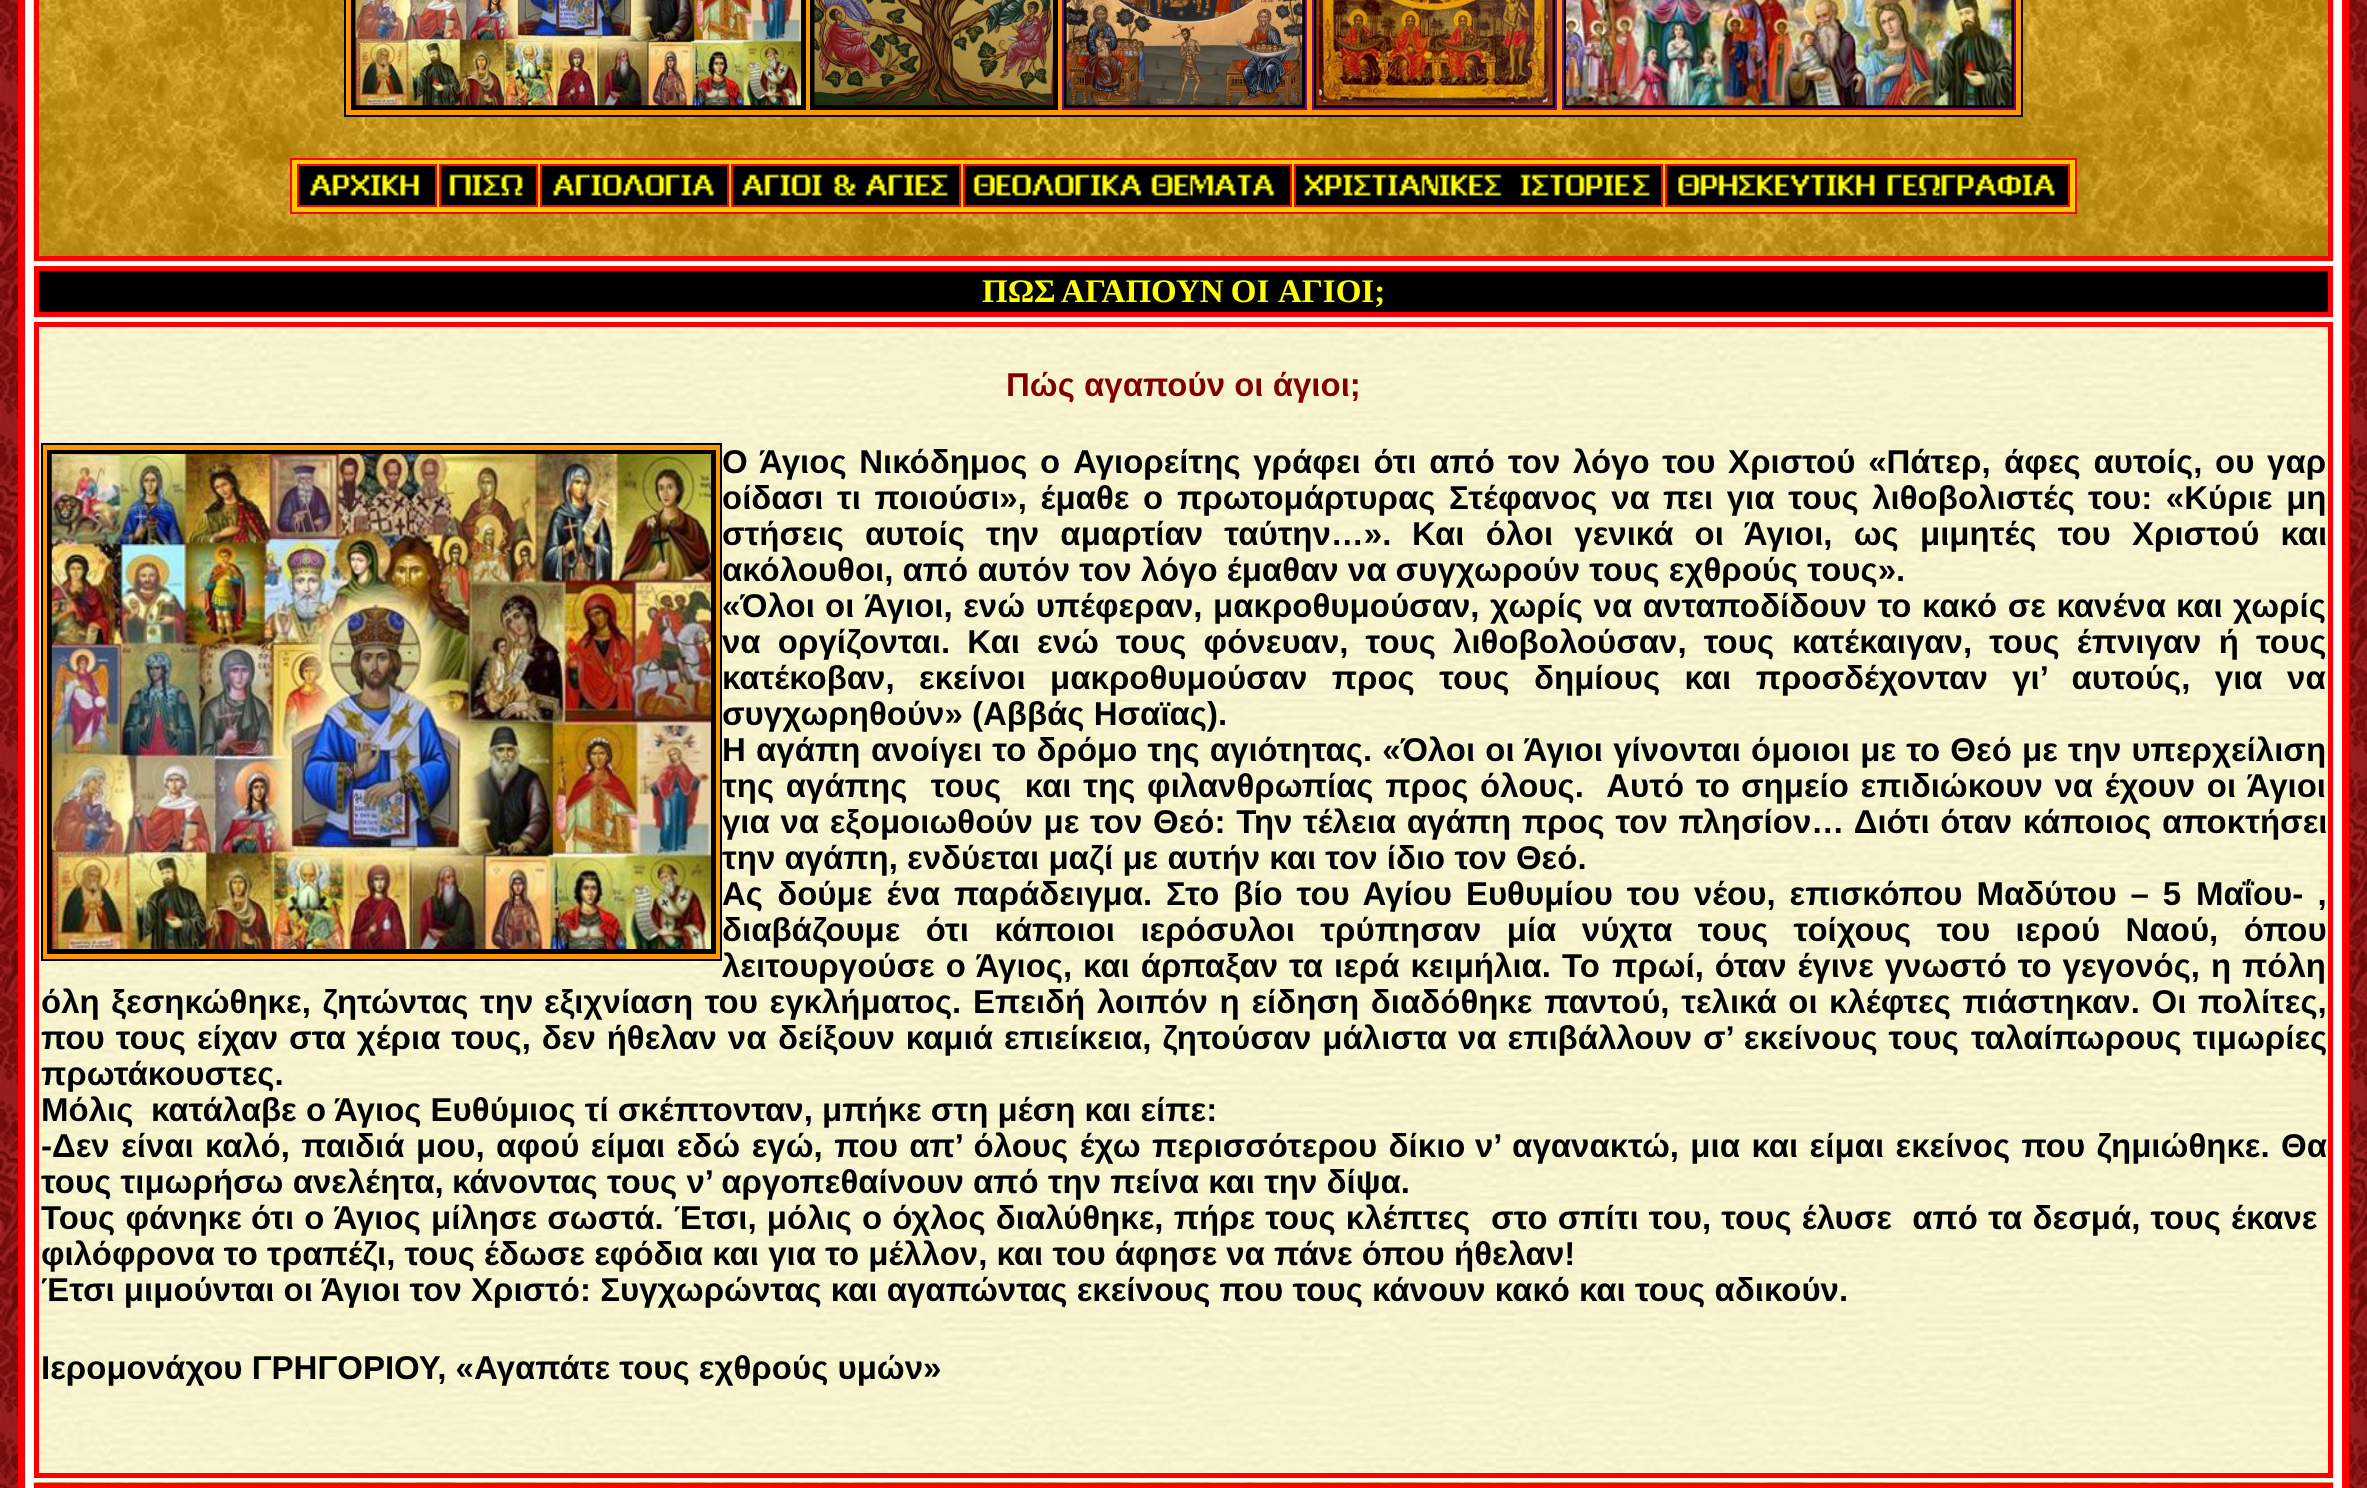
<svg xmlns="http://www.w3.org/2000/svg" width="2367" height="1488">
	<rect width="100%" height="100%" fill="#FFFFFF" />
	<image x="0" y="0" width="2367" height="1488" href="assets/img1.png" />
	<rect x="21.5" y="-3.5" width="2324" height="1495" fill="#FFFFFF" stroke="#FF0000" stroke-width="7" />
	<image x="33" y="0" width="2301" height="261" href="assets/img2.png" />
	<rect x="36.5" y="-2.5" width="2294" height="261" fill="none" stroke="#FF0000" stroke-width="5" />
	<rect x="345" y="-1" width="1677" height="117" fill="#FF9900" stroke="#000000" stroke-width="2" />
	<rect x="351" y="0" width="455" height="110" fill="#000000" />
	<image x="355" y="0" width="446" height="106" href="assets/img3.png" />
	<rect x="810" y="0" width="248" height="110" fill="#000000" />
	<image x="814" y="0" width="239" height="106" href="assets/img4.png" />
	<rect x="1063" y="-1" width="243" height="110" fill="#000000" stroke="#800080" stroke-width="2" />
	<image x="1066" y="0" width="237" height="106" href="assets/img5.png" />
	<rect x="1313" y="-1" width="243" height="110" fill="#000000" stroke="#800080" stroke-width="2" />
	<image x="1316" y="0" width="237" height="106" href="assets/img6.png" />
	<rect x="1563" y="-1" width="452" height="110" fill="#000000" stroke="#800080" stroke-width="2" />
	<image x="1566" y="0" width="446" height="106" href="assets/img7.png" />
	<rect x="291" y="159" width="1785" height="54" fill="#FFCC00" stroke="#FF0000" stroke-width="2" />
	<rect x="298" y="165" width="138" height="41" fill="#000000" stroke="#FF0000" stroke-width="2" />
	<image x="310" y="174" width="110" height="22" href="assets/img8.png" />
	<rect x="440" y="165" width="97" height="41" fill="#000000" stroke="#FF0000" stroke-width="2" />
	<image x="449" y="174" width="74" height="22" href="assets/img9.png" />
	<rect x="541" y="165" width="187" height="41" fill="#000000" stroke="#FF0000" stroke-width="2" />
	<image x="553" y="174" width="161" height="22" href="assets/img10.png" />
	<rect x="732" y="165" width="228" height="41" fill="#000000" stroke="#FF0000" stroke-width="2" />
	<image x="742" y="174" width="206" height="22" href="assets/img11.png" />
	<rect x="964" y="165" width="327" height="41" fill="#000000" stroke="#FF0000" stroke-width="2" />
	<image x="973" y="174" width="302" height="22" href="assets/img12.png" />
	<rect x="1295" y="165" width="367" height="41" fill="#000000" stroke="#FF0000" stroke-width="2" />
	<image x="1304" y="174" width="346" height="22" href="assets/img13.png" />
	<rect x="1666" y="165" width="403" height="41" fill="#000000" stroke="#FF0000" stroke-width="2" />
	<image x="1678" y="174" width="377" height="22" href="assets/img14.png" />
	<rect x="36.5" y="268.5" width="2294" height="46" fill="#000000" stroke="#FF0000" stroke-width="5" />
	<g font-family="Liberation Serif" font-size="33" font-weight="700" fill="#FFFF00">
		<text x="982" y="302" word-spacing="-1">ΠΩΣ ΑΓΑΠΟΥΝ ΟΙ</text>
		<text x="1278" y="302">ΑΓΙΟΙ;</text>
	</g>
	<image x="33" y="321" width="2301" height="1157" href="assets/img15.png" />
	<rect x="36.5" y="324.5" width="2294" height="1151" fill="none" stroke="#FF0000" stroke-width="5" />
	<text x="1006" y="396" font-family="Liberation Sans" font-size="33" font-weight="700" fill="#800000">Πώς αγαπούν οι άγιοι;</text>
	<rect x="42" y="444" width="679" height="516" fill="#FF9900" stroke="#000000" stroke-width="2" />
	<rect x="47" y="450" width="669" height="504" fill="#000000" />
	<image x="51" y="454" width="660" height="495" href="assets/img16.png" />
	<g font-family="Liberation Sans" font-size="33" font-weight="700" fill="#000000">
		<text x="722" y="473" word-spacing="3.5">Ο Άγιος Νικόδημος ο</text>
		<text x="1073" y="473" word-spacing="3.5">Αγιορείτης γράφει ότι από</text>
		<text x="1508" y="473" word-spacing="3.5">τον λόγο του Χριστού «Πάτερ,</text>
		<text x="2004" y="473" word-spacing="3.5">άφες αυτοίς, ου γαρ</text>
		<text x="722" y="509">οίδασι</text>
		<text x="837" y="509" word-spacing="4.5">τι ποιούσι», έμαθε ο</text>
		<text x="1177" y="509" word-spacing="4.5">πρωτομάρτυρας Στέφανος να</text>
		<text x="1663" y="509" word-spacing="4.5">πει για τους λιθοβολιστές</text>
		<text x="2088" y="509" word-spacing="4.5">του: «Κύριε μη</text>
		<text x="722" y="545">στήσεις</text>
		<text x="865" y="545" word-spacing="12">αυτοίς την αμαρτίαν ταύτην…».</text>
		<text x="1412" y="545" word-spacing="12">Και όλοι γενικά οι Άγιοι, ως</text>
		<text x="1920" y="545" word-spacing="12">μιμητές του Χριστού και</text>
		<text x="722" y="581">ακόλουθοι, από αυτόν τον</text>
		<text x="1141" y="581">λόγο έμαθαν να συγχωρούν τους εχθρούς τους».</text>
		<text x="722" y="617" word-spacing="1">«Όλοι οι</text>
		<text x="864" y="617" word-spacing="1.4">Άγιοι, ενώ υπέφεραν, μακροθυμούσαν, χωρίς να ανταποδίδουν το κακό σε κανένα</text>
		<text x="2176" y="617" word-spacing="1">και χωρίς</text>
		<text x="722" y="653" word-spacing="8">να οργίζονται. Και ενώ τους φόνευαν, τους λιθοβολούσαν, τους</text>
		<text x="1792" y="653" word-spacing="8">κατέκαιγαν, τους έπνιγαν ή τους</text>
		<text x="722" y="689" word-spacing="15.25">κατέκοβαν, εκείνοι μακροθυμούσαν προς τους</text>
		<text x="1534" y="689" word-spacing="15.25">δημίους και προσδέχονταν γι’ αυτούς, για να</text>
		<text x="722" y="725">συγχωρηθούν» (Αββάς Ησαϊας).</text>
		<text x="722" y="761" word-spacing="1">Η αγάπη</text>
		<text x="871" y="761" word-spacing="1">ανοίγει το δρόμο της αγιότητας. «Όλοι οι Άγιοι γίνονται όμοιοι με το Θεό με</text>
		<text x="2068" y="761" word-spacing="1">την υπερχείλιση</text>
		<text x="722" y="797" word-spacing="2.6" xml:space="preserve">της αγάπης  τους  και της φιλανθρωπίας προς όλους.  Αυτό το</text>
		<text x="1741" y="797" word-spacing="2.5">σημείο επιδιώκουν να έχουν οι Άγιοι</text>
		<text x="722" y="833" word-spacing="1.5">για να εξομοιωθούν με τον Θεό: Την</text>
		<text x="1303" y="833" word-spacing="1.5">τέλεια αγάπη προς τον πλησίον… Διότι όταν κάποιος αποκτήσει</text>
		<text x="722" y="869">την αγάπη, ενδύεται μαζί με αυτήν και τον ίδιο τον Θεό.</text>
		<text x="722" y="905" word-spacing="5">Ας δούμε ένα</text>
		<text x="954" y="905" word-spacing="4.75">παράδειγμα. Στο βίο του Αγίου Ευθυμίου του νέου, επισκόπου Μαδύτου – 5</text>
		<text x="2196" y="905" word-spacing="5">Μαΐου- ,</text>
		<text x="722" y="941" word-spacing="16.25">διαβάζουμε ότι κάποιοι ιερόσυλοι τρύπησαν μία νύχτα τους τοίχους</text>
		<text x="1937" y="941" word-spacing="16.25">του ιερού Ναού, όπου</text>
		<text x="722" y="977" word-spacing="1.75">λειτουργούσε ο Άγιος, και άρπαξαν τα ιερά κειμήλια. Το</text>
		<text x="1612" y="977" word-spacing="1.75">πρωί, όταν έγινε γνωστό το γεγονός, η πόλη</text>
		<text x="41" y="1013" word-spacing="2.5">όλη ξεσηκώθηκε, ζητώντας την</text>
		<text x="544" y="1013" word-spacing="2.5">εξιχνίαση του εγκλήματος. Επειδή λοιπόν η είδηση διαδόθηκε παντού, τελικά οι</text>
		<text x="1829" y="1013" word-spacing="2.5">κλέφτες πιάστηκαν. Οι πολίτες,</text>
		<text x="41" y="1049" word-spacing="1.75">που τους είχαν στα χέρια τους, δεν ήθελαν να</text>
		<text x="778" y="1049" word-spacing="1.75">δείξουν καμιά επιείκεια, ζητούσαν μάλιστα να επιβάλλουν σ’ εκείνους τους</text>
		<text x="1971" y="1049" word-spacing="2">ταλαίπωρους τιμωρίες</text>
		<text x="41" y="1085">πρωτάκουστες.</text>
		<text x="41" y="1121">Μόλις</text>
		<text x="151" y="1121">κατάλαβε ο Άγιος Ευθύμιος τί σκέπτονταν, μπήκε στη μέση και είπε:</text>
		<text x="41" y="1157" word-spacing="2.25">-Δεν είναι</text>
		<text x="205" y="1157" word-spacing="2.25">καλό, παιδιά μου, αφού είμαι εδώ εγώ, που απ’ όλους έχω περισσότερου δίκιο</text>
		<text x="1475" y="1157" word-spacing="2.25">ν’ αγανακτώ, μια και είμαι εκείνος που ζημιώθηκε. Θα</text>
		<text x="41" y="1193">τους τιμωρήσω ανελέητα,</text>
		<text x="452" y="1193">κάνοντας τους ν’ αργοπεθαίνουν από την πείνα και την δίψα.</text>
		<text x="41" y="1229" word-spacing="1">Τους φάνηκε</text>
		<text x="251" y="1229" word-spacing="1">ότι ο Άγιος μίλησε σωστά. Έτσι, μόλις ο όχλος διαλύθηκε, πήρε τους κλέπτες</text>
		<text x="1491" y="1229" word-spacing="1" xml:space="preserve">στο σπίτι του, τους έλυσε  από τα δεσμά, τους έκανε</text>
		<text x="41" y="1265">φιλόφρονα το τραπέζι, τους έδωσε εφόδια και για το μέλλον, και του άφησε να πάνε όπου ήθελαν!</text>
		<text x="41" y="1301">Έτσι μιμούνται οι Άγιοι τον Χριστό: Συγχωρώντας και αγαπώντας εκείνους που τους κάνουν κακό και τους αδικούν.</text>
		<text x="41" y="1379">Ιερομονάχου ΓΡΗΓΟΡΙΟΥ, «Αγαπάτε τους εχθρούς υμών»</text>
	</g>
	<image x="33" y="1482" width="2301" height="6" href="assets/img17.png" />
	<rect x="36.5" y="1485.5" width="2294" height="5" fill="none" stroke="#FF0000" stroke-width="5" />
</svg>
